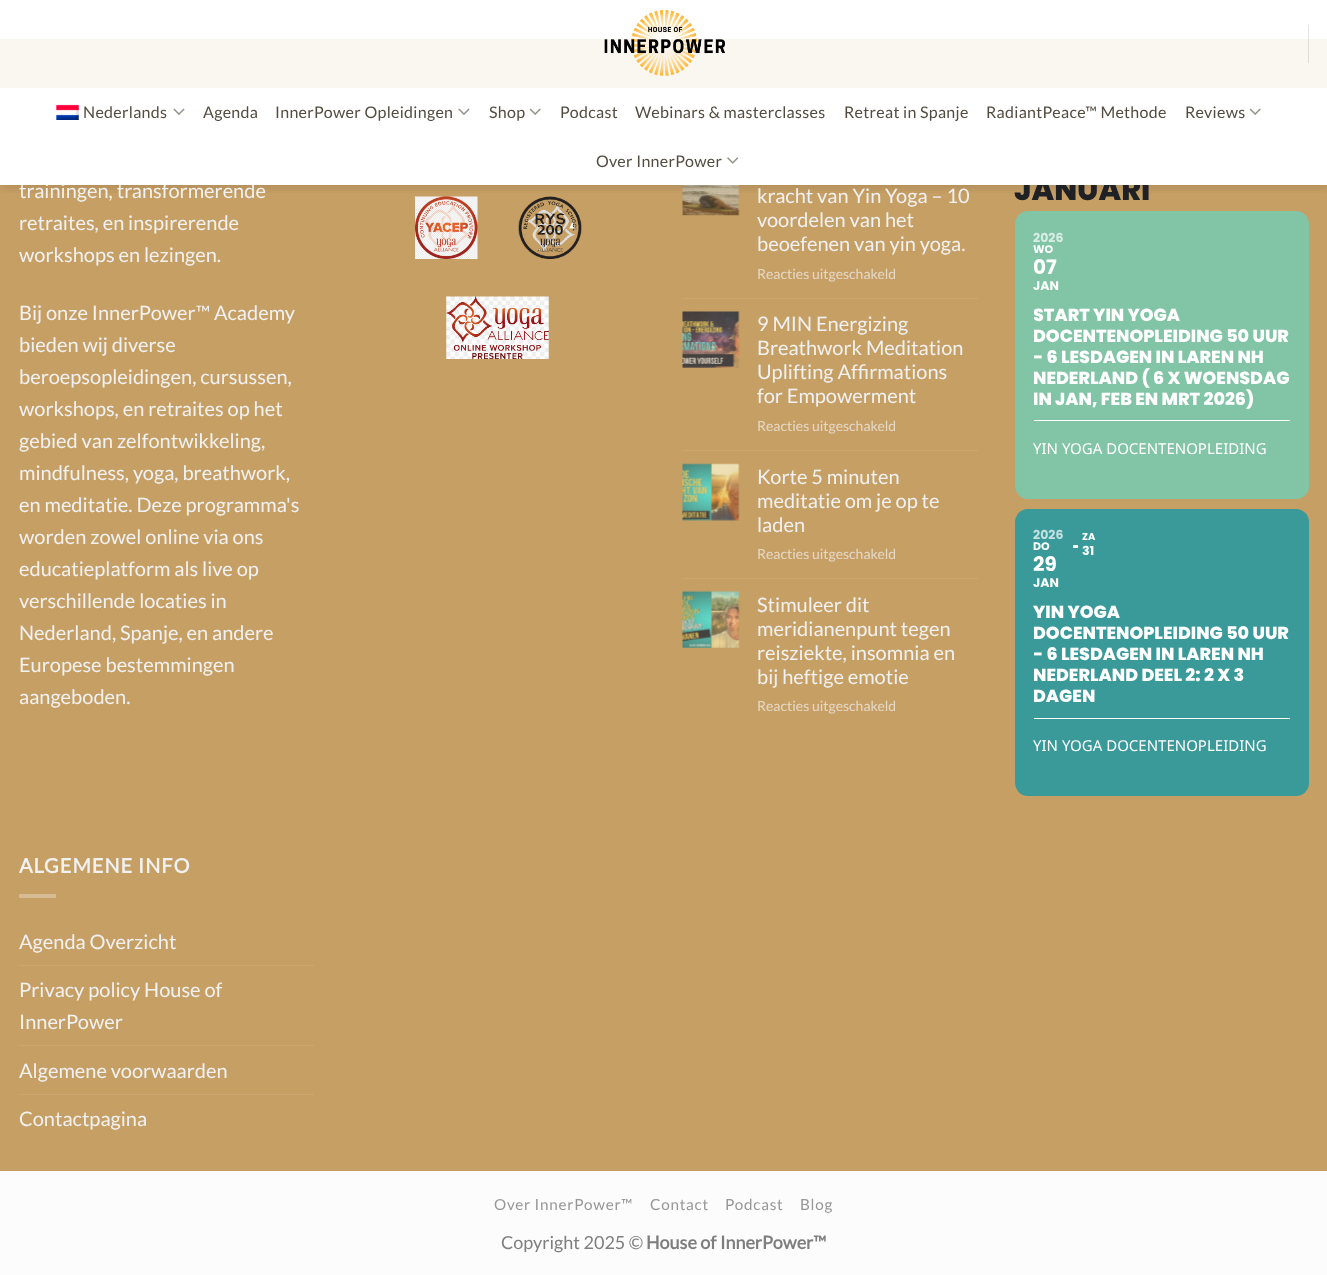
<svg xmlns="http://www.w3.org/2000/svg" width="1327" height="1275">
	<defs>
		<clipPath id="clip1"><rect x="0" y="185" width="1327" height="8" /></clipPath>
		<clipPath id="clip2"><rect x="1034" y="305" width="256" height="163" /></clipPath>
		<clipPath id="clip3"><rect x="1034" y="603" width="256" height="162" /></clipPath>
	</defs>
	<rect width="100%" height="100%" fill="#FFFFFF" />
	<rect x="0" y="40" width="1327" height="1131" fill="#C69F65" />
	<rect x="0" y="39" width="1327" height="1" fill="#BC9760" />
	<image x="415" y="196" width="63" height="63" href="assets/img6.png" />
	<image x="518" y="196" width="64" height="63" href="assets/img7.png" />
	<image x="682" y="185" width="58" height="31" href="assets/img9.png" />
	<g clip-path="url(#clip1)">
		<rect x="1" y="1" width="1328" height="185" fill="#000000" fill-opacity="0.15" filter="blur(6px)" />
	</g>
	<rect x="0" y="39" width="1327" height="49" fill="#FFFFFF" fill-opacity="0.9" />
	<image x="604" y="10" width="121" height="66" href="assets/img1.png" />
	<rect x="1308" y="25" width="1" height="38" fill="#000000" fill-opacity="0.1" />
	<text x="19" y="198" font-family="Lato" font-size="20" fill="#F1F1F1">trainingen, transformerende</text>
	<text x="1014" y="200" font-family="Poppins" font-size="30" font-weight="800" fill="#202124">JANUARI</text>
	<rect x="0" y="88" width="1327" height="97" fill="#FFFFFF" />
	<image x="56" y="104" width="23" height="16" href="assets/img2.png" />
	<text x="83" y="118" font-family="Lato" font-size="16" letter-spacing="0.3" fill="#534C40">Nederlands</text>
	<image x="173" y="108" width="12" height="7" href="assets/img3.png" />
	<g font-family="Lato" font-size="16" letter-spacing="0.3" fill="#534C40">
		<text x="203" y="118">Agenda</text>
		<text x="275" y="118">InnerPower Opleidingen</text>
	</g>
	<image x="458" y="108" width="12" height="7" href="assets/img3.png" />
	<text x="489" y="118" font-family="Lato" font-size="16" letter-spacing="0.3" fill="#534C40">Shop</text>
	<image x="529" y="108" width="12" height="7" href="assets/img4.png" />
	<g font-family="Lato" font-size="16" letter-spacing="0.3" fill="#534C40">
		<text x="560" y="118">Podcast</text>
		<text x="635" y="118">Webinars &amp; masterclasses</text>
		<text x="844" y="118">Retreat in Spanje</text>
		<text x="986" y="118">RadiantPeace™ Methode</text>
		<text x="1185" y="118">Reviews</text>
	</g>
	<image x="1249" y="108" width="12" height="7" href="assets/img4.png" />
	<text x="596" y="167" font-family="Lato" font-size="16" letter-spacing="0.3" fill="#534C40">Over InnerPower</text>
	<image x="727" y="157" width="12" height="7" href="assets/img5.png" />
	<g font-family="Lato" font-size="20" fill="#F1F1F1">
		<text x="19" y="230">retraites, en inspirerende</text>
		<text x="19" y="262">workshops en lezingen.</text>
		<text x="19" y="320">Bij onze InnerPower™ Academy</text>
		<text x="19" y="352">bieden wij diverse</text>
		<text x="19" y="384">beroepsopleidingen, cursussen,</text>
		<text x="19" y="416">workshops, en retraites op het</text>
		<text x="19" y="448">gebied van zelfontwikkeling,</text>
		<text x="19" y="480">mindfulness, yoga, breathwork,</text>
		<text x="19" y="512">en meditatie. Deze programma's</text>
		<text x="19" y="544">worden zowel online via ons</text>
		<text x="19" y="576">educatieplatform als live op</text>
		<text x="19" y="608">verschillende locaties in</text>
		<text x="19" y="640">Nederland, Spanje, en andere</text>
		<text x="19" y="672">Europese bestemmingen</text>
		<text x="19" y="704">aangeboden.</text>
	</g>
	<image x="446" y="296" width="103" height="63" href="assets/img8.png" />
	<g font-family="Lato" font-size="20" fill="#F1F1F1">
		<text x="757" y="203">kracht van Yin Yoga – 10</text>
		<text x="757" y="227">voordelen van het</text>
		<text x="757" y="251">beoefenen van yin yoga.</text>
	</g>
	<text x="757" y="279" font-family="Lato" font-size="14" fill="#E4D8C7">Reacties uitgeschakeld</text>
	<rect x="683" y="298" width="295" height="1" fill="#CBA771" />
	<image x="682" y="311" width="58" height="57" href="assets/img10.png" />
	<g font-family="Lato" font-size="20" fill="#F1F1F1">
		<text x="757" y="331">9 MIN Energizing</text>
		<text x="757" y="355">Breathwork Meditation</text>
		<text x="757" y="379">Uplifting Affirmations</text>
		<text x="757" y="403">for Empowerment</text>
	</g>
	<text x="757" y="431" font-family="Lato" font-size="14" fill="#E4D8C7">Reacties uitgeschakeld</text>
	<rect x="683" y="450" width="295" height="1" fill="#CBA771" />
	<image x="682" y="463" width="58" height="58" href="assets/img11.png" />
	<g font-family="Lato" font-size="20" fill="#F1F1F1">
		<text x="757" y="484">Korte 5 minuten</text>
		<text x="757" y="508">meditatie om je op te</text>
		<text x="757" y="532">laden</text>
	</g>
	<text x="757" y="559" font-family="Lato" font-size="14" fill="#E4D8C7">Reacties uitgeschakeld</text>
	<rect x="683" y="578" width="295" height="1" fill="#CBA771" />
	<image x="682" y="590" width="58" height="58" href="assets/img12.png" />
	<g font-family="Lato" font-size="20" fill="#F1F1F1">
		<text x="757" y="612">Stimuleer dit</text>
		<text x="757" y="636">meridianenpunt tegen</text>
		<text x="757" y="660">reisziekte, insomnia en</text>
		<text x="757" y="684">bij heftige emotie</text>
	</g>
	<text x="757" y="711" font-family="Lato" font-size="14" fill="#E4D8C7">Reacties uitgeschakeld</text>
	<rect x="1015" y="211" width="294" height="288" rx="13" fill="#81C4A6" />
	<text x="1033" y="242" font-family="Poppins" font-size="12.5" font-weight="700" fill="#D9EDE4">2026</text>
	<text x="1033" y="253" font-family="Poppins" font-size="11" font-weight="700" fill="#FFFFFF">WO</text>
	<text x="1033" y="274" font-family="Poppins" font-size="20" font-weight="700" fill="#FFFFFF">07</text>
	<text x="1033" y="290" font-family="Poppins" font-size="12.5" font-weight="700" fill="#FFFFFF">JAN</text>
	<rect x="1034" y="420" width="256" height="1" fill="#FFFFFF" />
	<g clip-path="url(#clip2)">
		<text x="1033" y="321" font-family="Poppins" font-size="17.5" font-weight="800" fill="#FFFFFF">START YIN YOGA</text>
	</g>
	<text x="1033" y="342" font-family="Poppins" font-size="17.5" font-weight="800" fill="#FFFFFF">DOCENTENOPLEIDING 50 UUR</text>
	<g clip-path="url(#clip2)">
		<text x="1033" y="363" font-family="Poppins" font-size="17.5" font-weight="800" fill="#FFFFFF">- 6 LESDAGEN IN LAREN NH</text>
	</g>
	<g font-family="Poppins" font-size="17.5" font-weight="800" fill="#FFFFFF">
		<text x="1033" y="384">NEDERLAND ( 6 X WOENSDAG</text>
		<text x="1033" y="405">IN JAN, FEB EN MRT 2026)</text>
	</g>
	<text x="1033" y="454" font-family="Noto Sans" font-size="15" fill="#FFFFFF">YIN YOGA DOCENTENOPLEIDING</text>
	<rect x="1015" y="509" width="294" height="287" rx="13" fill="#3A9999" />
	<text x="1033" y="539" font-family="Poppins" font-size="12.5" font-weight="700" fill="#C4E0E0">2026</text>
	<text x="1033" y="550" font-family="Poppins" font-size="11" font-weight="700" fill="#FFFFFF">DO</text>
	<text x="1033" y="571" font-family="Poppins" font-size="20" font-weight="700" fill="#FFFFFF">29</text>
	<text x="1033" y="587" font-family="Poppins" font-size="12.5" font-weight="700" fill="#FFFFFF">JAN</text>
	<text x="1082" y="540" font-family="Poppins" font-size="10" font-weight="700" fill="#FFFFFF">ZA</text>
	<rect x="1073" y="545" width="5" height="3" fill="#FFFFFF" />
	<text x="1082" y="555" font-family="Poppins" font-size="12.5" font-weight="700" fill="#FFFFFF">31</text>
	<rect x="1034" y="718" width="256" height="1" fill="#FFFFFF" />
	<g font-family="Poppins" font-size="17.5" font-weight="800" fill="#FFFFFF">
		<text x="1033" y="618">YIN YOGA</text>
		<text x="1033" y="639">DOCENTENOPLEIDING 50 UUR</text>
	</g>
	<g clip-path="url(#clip3)">
		<text x="1033" y="660" font-family="Poppins" font-size="17.5" font-weight="800" fill="#FFFFFF">- 6 LESDAGEN IN LAREN NH</text>
	</g>
	<g font-family="Poppins" font-size="17.5" font-weight="800" fill="#FFFFFF">
		<text x="1033" y="681">NEDERLAND DEEL 2: 2 X 3</text>
		<text x="1033" y="702">DAGEN</text>
	</g>
	<text x="1033" y="751" font-family="Noto Sans" font-size="15" fill="#FFFFFF">YIN YOGA DOCENTENOPLEIDING</text>
	<text x="19" y="873" font-family="Lato" font-size="20" font-weight="700" letter-spacing="1" fill="#F1F1F1">ALGEMENE INFO</text>
	<rect x="19" y="894" width="37" height="4" fill="#D7BC93" />
	<text x="19" y="949" font-family="Lato" font-size="20" fill="#F1F1F1">Agenda Overzicht</text>
	<rect x="19" y="965" width="295" height="1" fill="#CBA771" />
	<g font-family="Lato" font-size="20" fill="#F1F1F1">
		<text x="19" y="997">Privacy policy House of</text>
		<text x="19" y="1029">InnerPower</text>
	</g>
	<rect x="19" y="1045" width="295" height="1" fill="#CBA771" />
	<text x="19" y="1078" font-family="Lato" font-size="20" fill="#F1F1F1">Algemene voorwaarden</text>
	<rect x="19" y="1094" width="295" height="1" fill="#CBA771" />
	<text x="19" y="1126" font-family="Lato" font-size="20" fill="#F1F1F1">Contactpagina</text>
	<rect x="0" y="1171" width="1327" height="104" fill="#FCFCFC" />
	<g font-family="Lato" font-size="15.25" letter-spacing="0.75" fill="#979797">
		<text x="494" y="1210">Over InnerPower™</text>
		<text x="650" y="1210">Contact</text>
		<text x="725" y="1210">Podcast</text>
		<text x="800" y="1210">Blog</text>
	</g>
	<text x="501" y="1249" font-family="Lato" font-size="18" fill="#7E7E7E">Copyright 2025 ©</text>
	<text x="646" y="1249" font-family="Lato" font-size="18" font-weight="700" fill="#7E7E7E">House of InnerPower™</text>
</svg>
